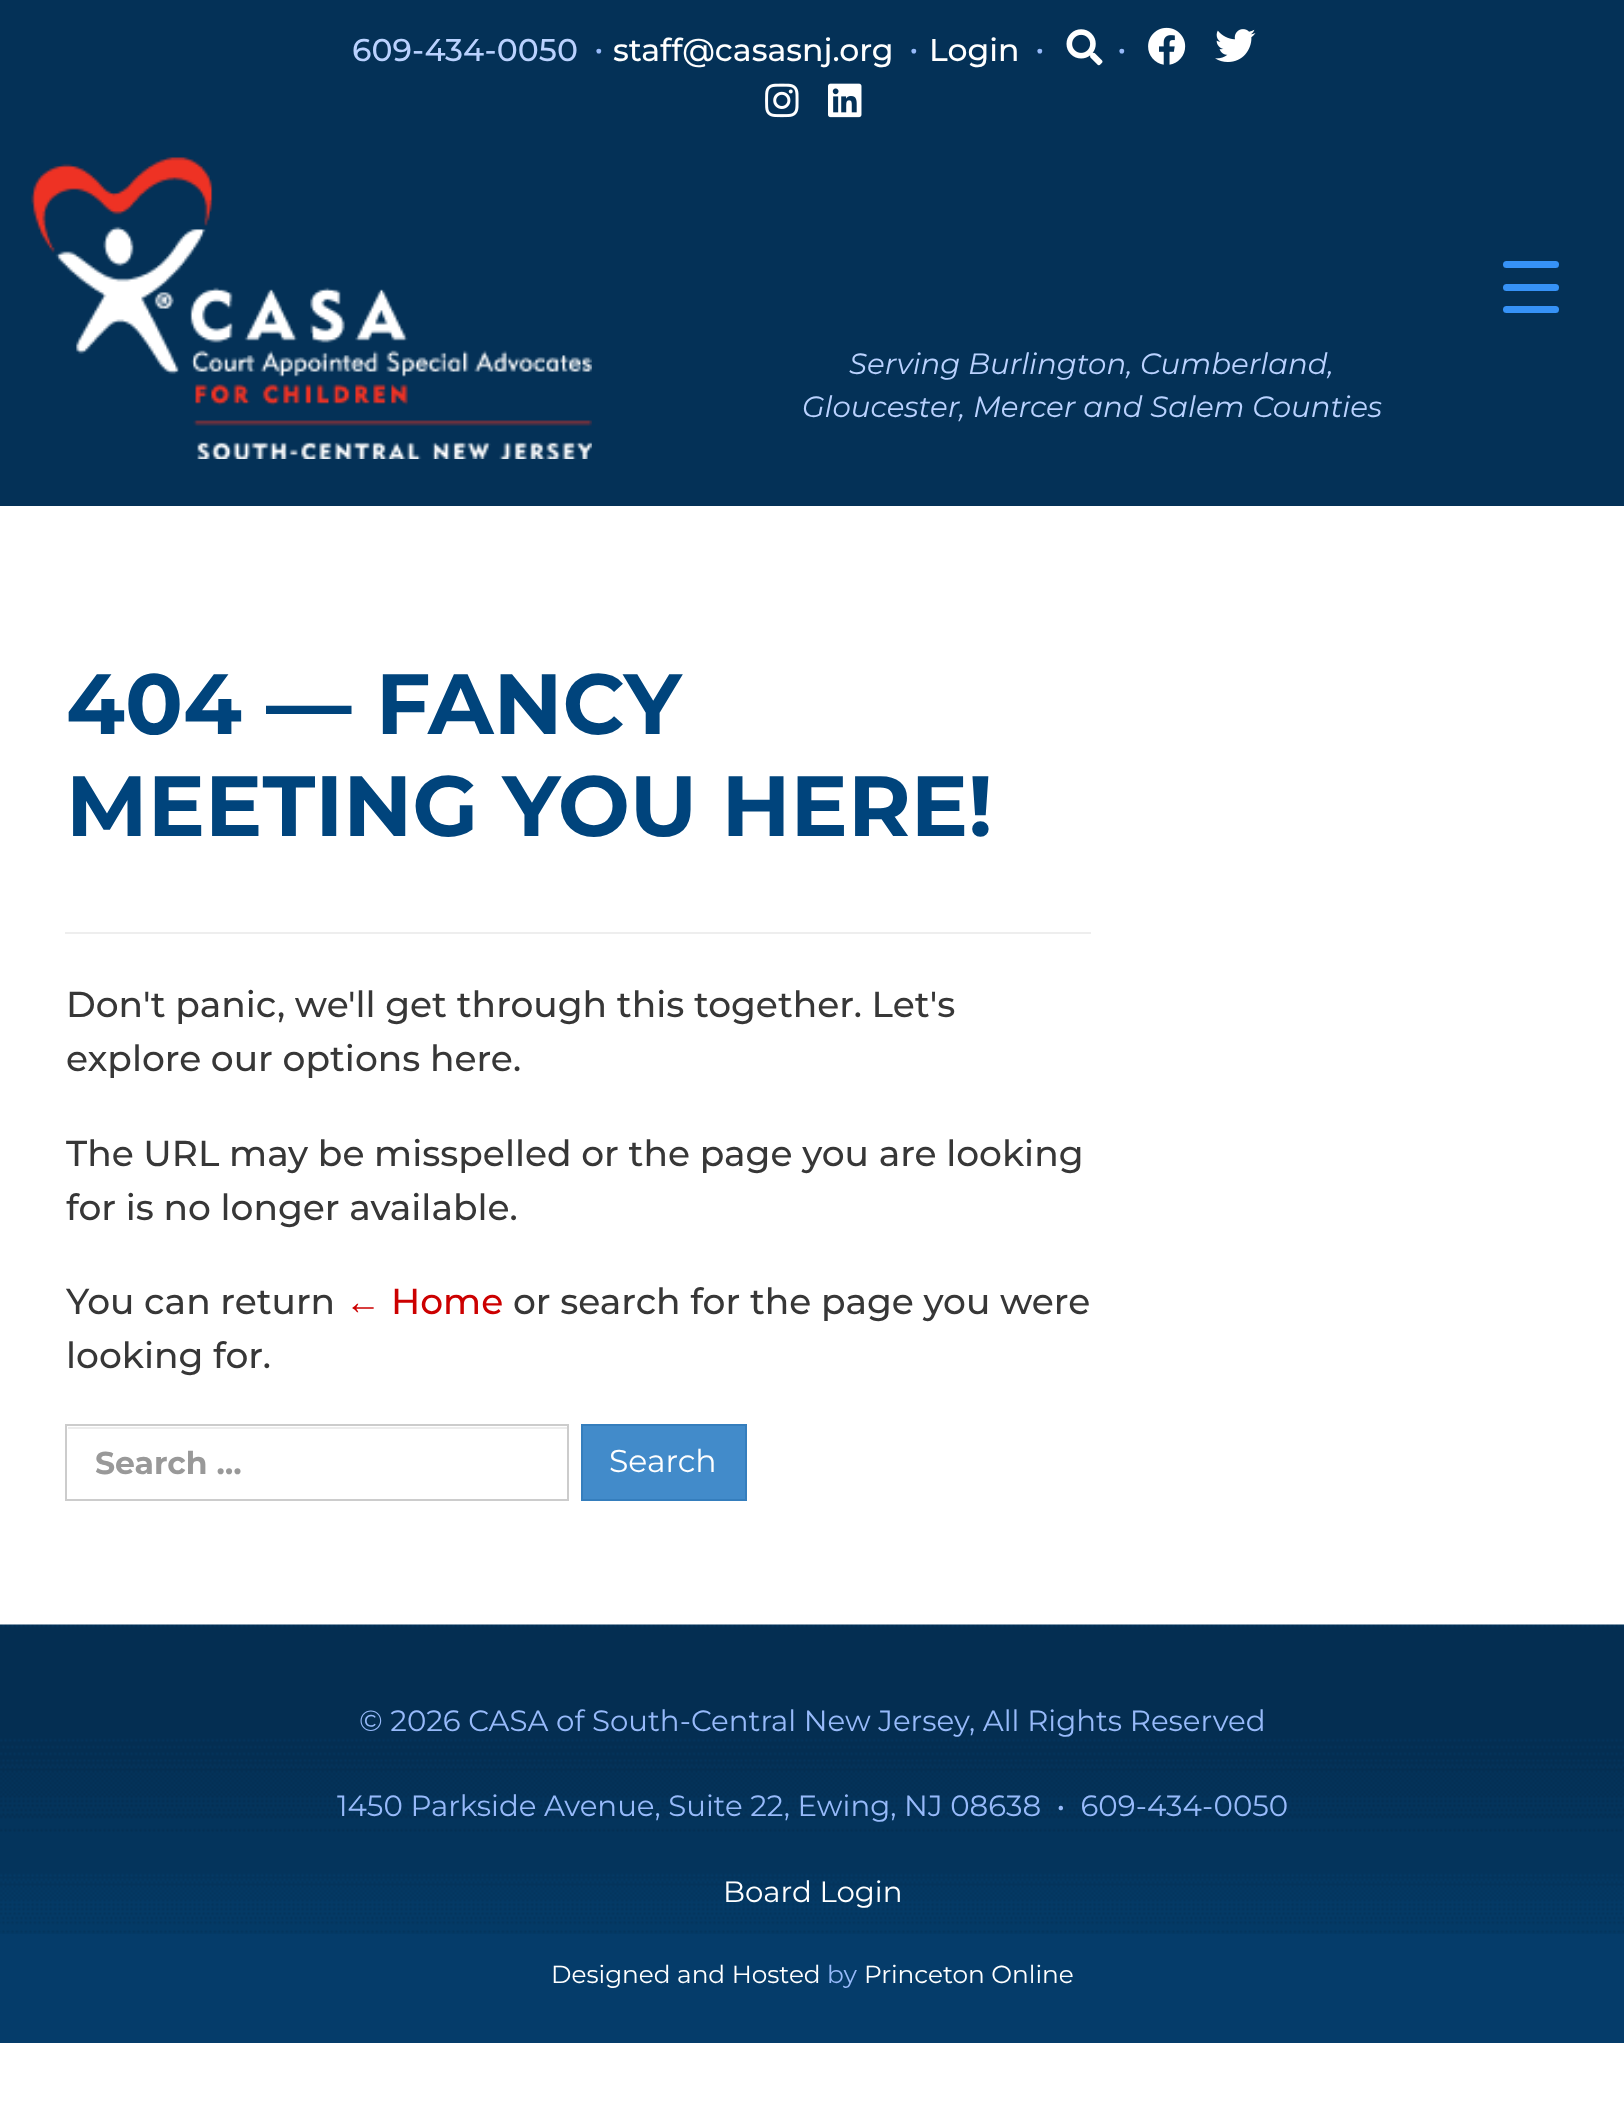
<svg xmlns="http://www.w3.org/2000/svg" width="1624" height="2123">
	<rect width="100%" height="100%" fill="#FFFFFF" />
	<rect x="0" y="0" width="1624" height="506" fill="#043157" />
	<text x="352" y="61" font-family="Montserrat" font-size="31.5" font-weight="500" fill="#BAD2FF">609-434-0050</text>
	<text x="594" y="61" font-family="Montserrat" font-size="36" font-weight="500" fill="#97BAFA">·</text>
	<text x="613" y="61" font-family="Montserrat" font-size="31.5" font-weight="500" fill="#FFFFFF">staff@casasnj.org</text>
	<text x="909" y="61" font-family="Montserrat" font-size="36" font-weight="500" fill="#97BAFA">·</text>
	<text x="929" y="61" font-family="Montserrat" font-size="31.5" font-weight="500" fill="#FFFFFF">Login</text>
	<text x="1035" y="61" font-family="Montserrat" font-size="36" font-weight="500" fill="#97BAFA">·</text>
	<image x="1066" y="29" width="37" height="37" href="assets/img1.png" />
	<text x="1117" y="61" font-family="Montserrat" font-size="36" font-weight="500" fill="#97BAFA">·</text>
	<image x="1148" y="27" width="38" height="38" href="assets/img2.png" />
	<image x="1215" y="29" width="41" height="33" href="assets/img3.png" />
	<image x="765" y="83" width="34" height="35" href="assets/img4.png" />
	<image x="828" y="83" width="34" height="35" href="assets/img5.png" />
	<image x="31" y="157" width="561" height="302" href="assets/img6.png" />
	<g font-family="Montserrat" font-size="29.25" font-style="italic" fill="#BAD2FF">
		<text x="849" y="374">Serving Burlington, Cumberland,</text>
		<text x="802" y="417">Gloucester, Mercer and Salem Counties</text>
	</g>
	<rect x="65" y="932" width="1026" height="2" fill="#EEEEEE" />
	<g font-family="Montserrat" font-size="85.5" font-weight="700" fill="#00447C">
		<text x="66" y="734">404 — FANCY</text>
		<text x="66" y="836">MEETING YOU HERE!</text>
	</g>
	<g font-family="Montserrat" font-size="36" font-weight="500" fill="#373737">
		<text x="66" y="1017">Don't panic, we'll get through this together. Let's</text>
		<text x="66" y="1071">explore our options here.</text>
		<text x="66" y="1166">The URL may be misspelled or the page you are looking</text>
		<text x="66" y="1220">for is no longer available.</text>
		<text x="66" y="1314">You can return</text>
	</g>
	<text x="345" y="1314" font-family="Liberation Sans" font-size="36" fill="#CC0000">←</text>
	<text x="391" y="1314" font-family="Montserrat" font-size="36" font-weight="500" fill="#CC0000">Home</text>
	<g font-family="Montserrat" font-size="36" font-weight="500" fill="#373737">
		<text x="513" y="1314">or search for the page you were</text>
		<text x="66" y="1368">looking for.</text>
	</g>
	<rect x="68" y="1427" width="499" height="2" fill="#ECECEC" />
	<rect x="66" y="1425" width="502" height="75" fill="none" stroke="#CCCCCC" stroke-width="2" />
	<text x="95" y="1474" font-family="Montserrat" font-size="31.5" font-weight="700" fill="#999999">Search …</text>
	<rect x="582" y="1425" width="164" height="75" fill="#428BCA" stroke="#357EBD" stroke-width="2" />
	<text x="609" y="1472" font-family="Montserrat" font-size="31.5" fill="#FFFFFF">Search</text>
	<rect x="1503" y="284" width="56" height="7" rx="3.5" fill="#3692F7" />
	<rect x="1503" y="261" width="56" height="7" rx="3.5" fill="#3692F7" />
	<rect x="1503" y="306" width="56" height="7" rx="3.5" fill="#3692F7" />
	<rect x="0" y="1934" width="1624" height="109" fill="#053C6A" />
	<image x="0" y="1624" width="1624" height="310" href="assets/img7.png" />
	<g font-family="Montserrat" font-size="29.25" fill="#97BAFA">
		<text x="359" y="1731">© 2026 CASA of South-Central New Jersey, All Rights Reserved</text>
		<text x="337" y="1816" xml:space="preserve">1450 Parkside Avenue, Suite 22, Ewing, NJ 08638  •  609-434-0050</text>
	</g>
	<text x="723" y="1902" font-family="Montserrat" font-size="29.25" fill="#FFFFFF">Board Login</text>
	<text x="551" y="1983" font-family="Montserrat" font-size="24.75" fill="#FFFFFF">Designed and Hosted</text>
	<text x="827" y="1983" font-family="Montserrat" font-size="24.75" fill="#97BAFA">by</text>
	<text x="864" y="1983" font-family="Montserrat" font-size="24.75" fill="#FFFFFF">Princeton Online</text>
</svg>
